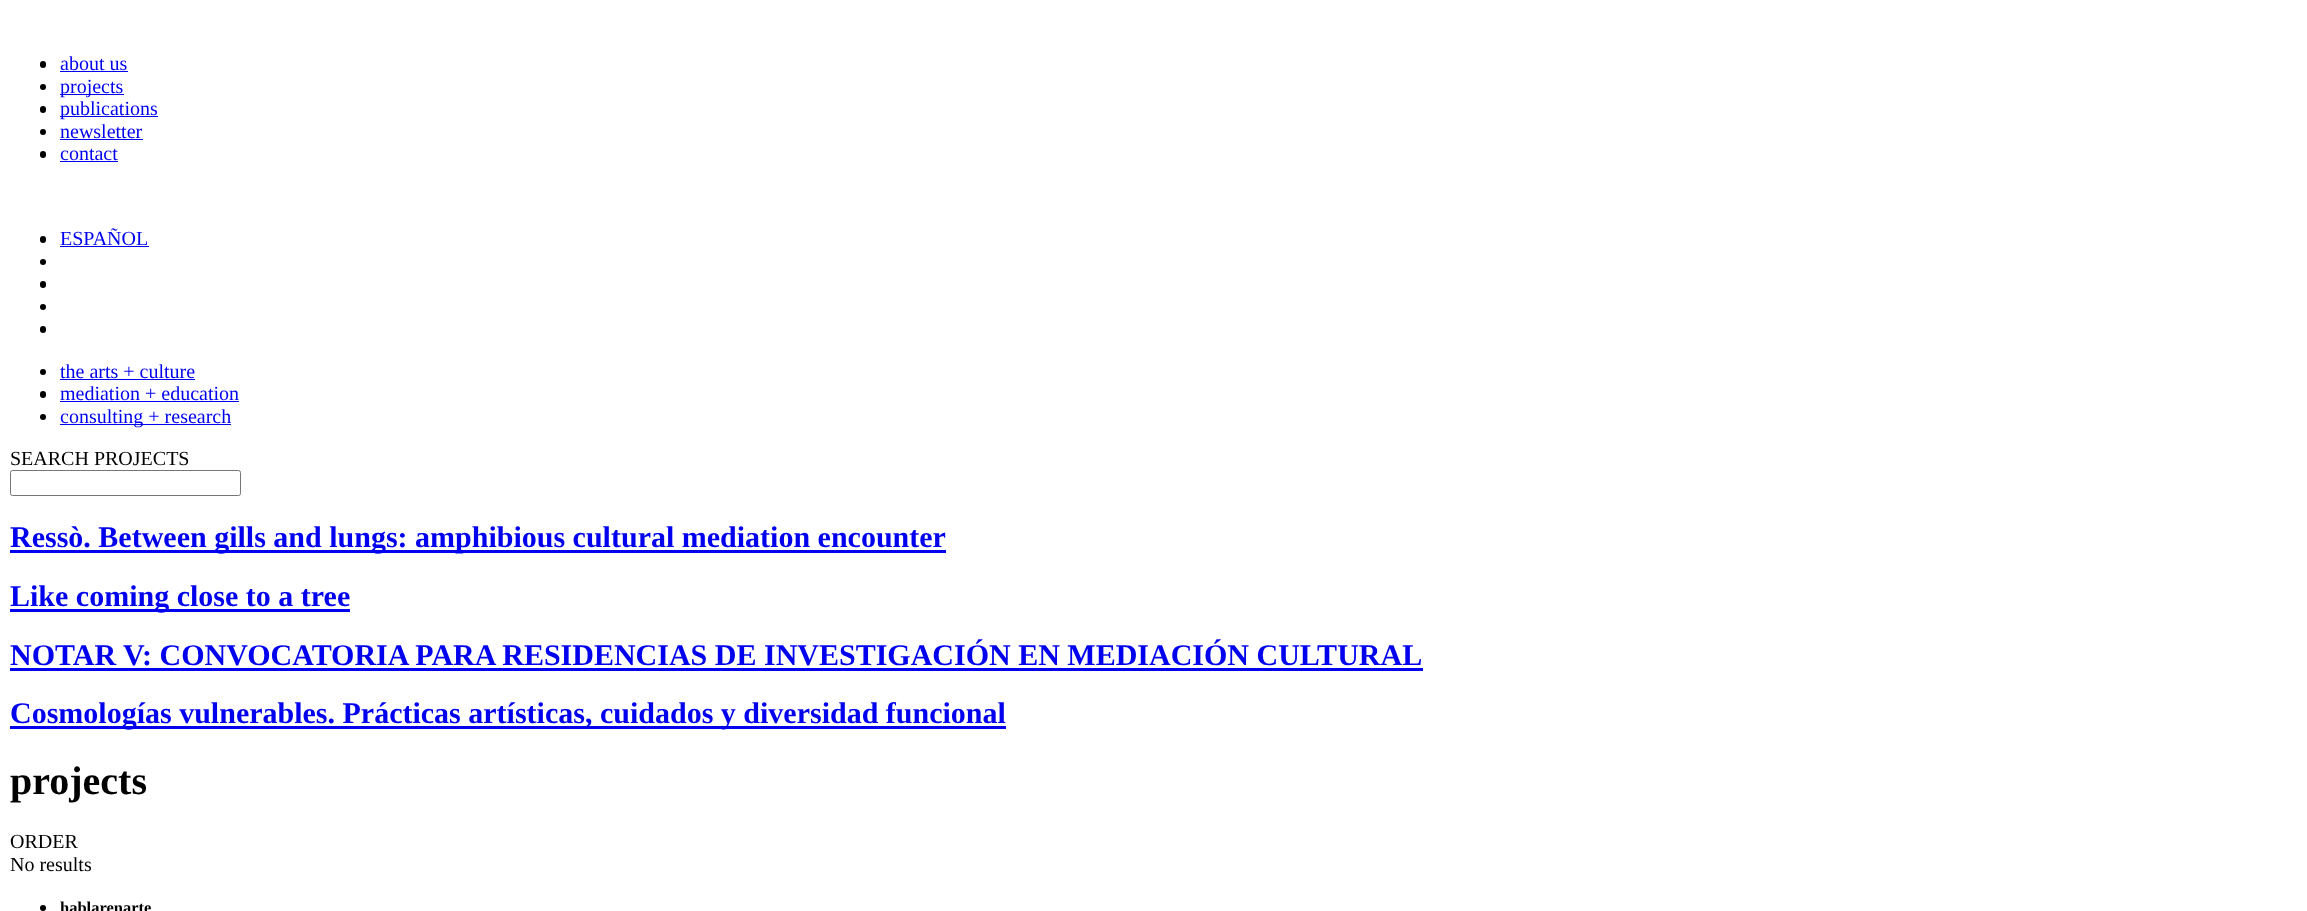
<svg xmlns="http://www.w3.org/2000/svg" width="2307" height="911">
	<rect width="100%" height="100%" fill="#FFFFFF" />
	<rect x="40" y="61" width="6" height="7" rx="3" fill="#000000" />
	<text x="60" y="70" font-family="Liberation Serif" font-size="20" fill="#0000EE">about us</text>
	<rect x="60" y="71" width="68" height="1" fill="#0000EE" />
	<circle cx="43" cy="87" r="3" fill="#000000" />
	<rect x="60" y="94" width="64" height="1" fill="#0000EE" />
	<text x="60" y="93" font-family="Liberation Serif" font-size="20" fill="#0000EE">projects</text>
	<rect x="40" y="106" width="6" height="7" rx="3" fill="#000000" />
	<rect x="60" y="116" width="98" height="1" fill="#0000EE" />
	<text x="60" y="115" font-family="Liberation Serif" font-size="20" fill="#0000EE">publications</text>
	<circle cx="43" cy="132" r="3" fill="#000000" />
	<text x="60" y="138" font-family="Liberation Serif" font-size="20" fill="#0000EE">newsletter</text>
	<rect x="60" y="139" width="83" height="1" fill="#0000EE" />
	<rect x="40" y="151" width="6" height="7" rx="3" fill="#000000" />
	<text x="60" y="160" font-family="Liberation Serif" font-size="20" fill="#0000EE">contact</text>
	<rect x="60" y="161" width="58" height="1" fill="#0000EE" />
	<rect x="40" y="236" width="6" height="7" rx="3" fill="#000000" />
	<text x="60" y="245" font-family="Liberation Serif" font-size="20" fill="#0000EE">ESPAÑOL</text>
	<rect x="60" y="246" width="89" height="1" fill="#0000EE" />
	<circle cx="43" cy="262" r="3" fill="#000000" />
	<rect x="40" y="281" width="6" height="7" rx="3" fill="#000000" />
	<circle cx="43" cy="307" r="3" fill="#000000" />
	<rect x="40" y="326" width="6" height="7" rx="3" fill="#000000" />
	<circle cx="43" cy="372" r="3" fill="#000000" />
	<text x="60" y="378" font-family="Liberation Serif" font-size="20" fill="#0000EE">the arts + culture</text>
	<rect x="60" y="379" width="135" height="1" fill="#0000EE" />
	<rect x="40" y="391" width="6" height="7" rx="3" fill="#000000" />
	<text x="60" y="400" font-family="Liberation Serif" font-size="20" fill="#0000EE">mediation + education</text>
	<rect x="60" y="401" width="179" height="1" fill="#0000EE" />
	<circle cx="43" cy="417" r="3" fill="#000000" />
	<rect x="60" y="424" width="171" height="1" fill="#0000EE" />
	<text x="60" y="423" font-family="Liberation Serif" font-size="20" fill="#0000EE">consulting + research</text>
	<text x="10" y="465" font-family="Liberation Serif" font-size="20" fill="#000000">SEARCH PROJECTS</text>
	<rect x="10.5" y="470.5" width="230" height="25" rx="2" fill="none" stroke="#767676" />
	<rect x="10" y="550" width="936" height="3" fill="#0000EE" />
	<text x="10" y="547" font-family="Liberation Serif" font-size="30" font-weight="700" fill="#0000EE">Ressò. Between gills and lungs: amphibious cultural mediation encounter</text>
	<rect x="10" y="609" width="340" height="3" fill="#0000EE" />
	<g font-family="Liberation Serif" font-size="30" font-weight="700" fill="#0000EE">
		<text x="10" y="606">Like coming close to a tree</text>
		<text x="10" y="665">NOTAR V: CONVOCATORIA PARA RESIDENCIAS DE INVESTIGACIÓN EN MEDIACIÓN CULTURAL</text>
	</g>
	<rect x="10" y="668" width="1413" height="3" fill="#0000EE" />
	<rect x="10" y="726" width="996" height="3" fill="#0000EE" />
	<text x="10" y="723" font-family="Liberation Serif" font-size="30" font-weight="700" fill="#0000EE">Cosmologías vulnerables. Prácticas artísticas, cuidados y diversidad funcional</text>
	<text x="10" y="794" font-family="Liberation Serif" font-size="40" font-weight="700" fill="#000000">projects</text>
	<g font-family="Liberation Serif" font-size="20" fill="#000000">
		<text x="10" y="848">ORDER</text>
		<text x="10" y="871">No results</text>
	</g>
	<circle cx="43" cy="908" r="3" fill="#000000" />
	<text x="60" y="913" font-family="Liberation Serif" font-size="16.5" font-weight="700" fill="#000000">hablarenarte</text>
</svg>
